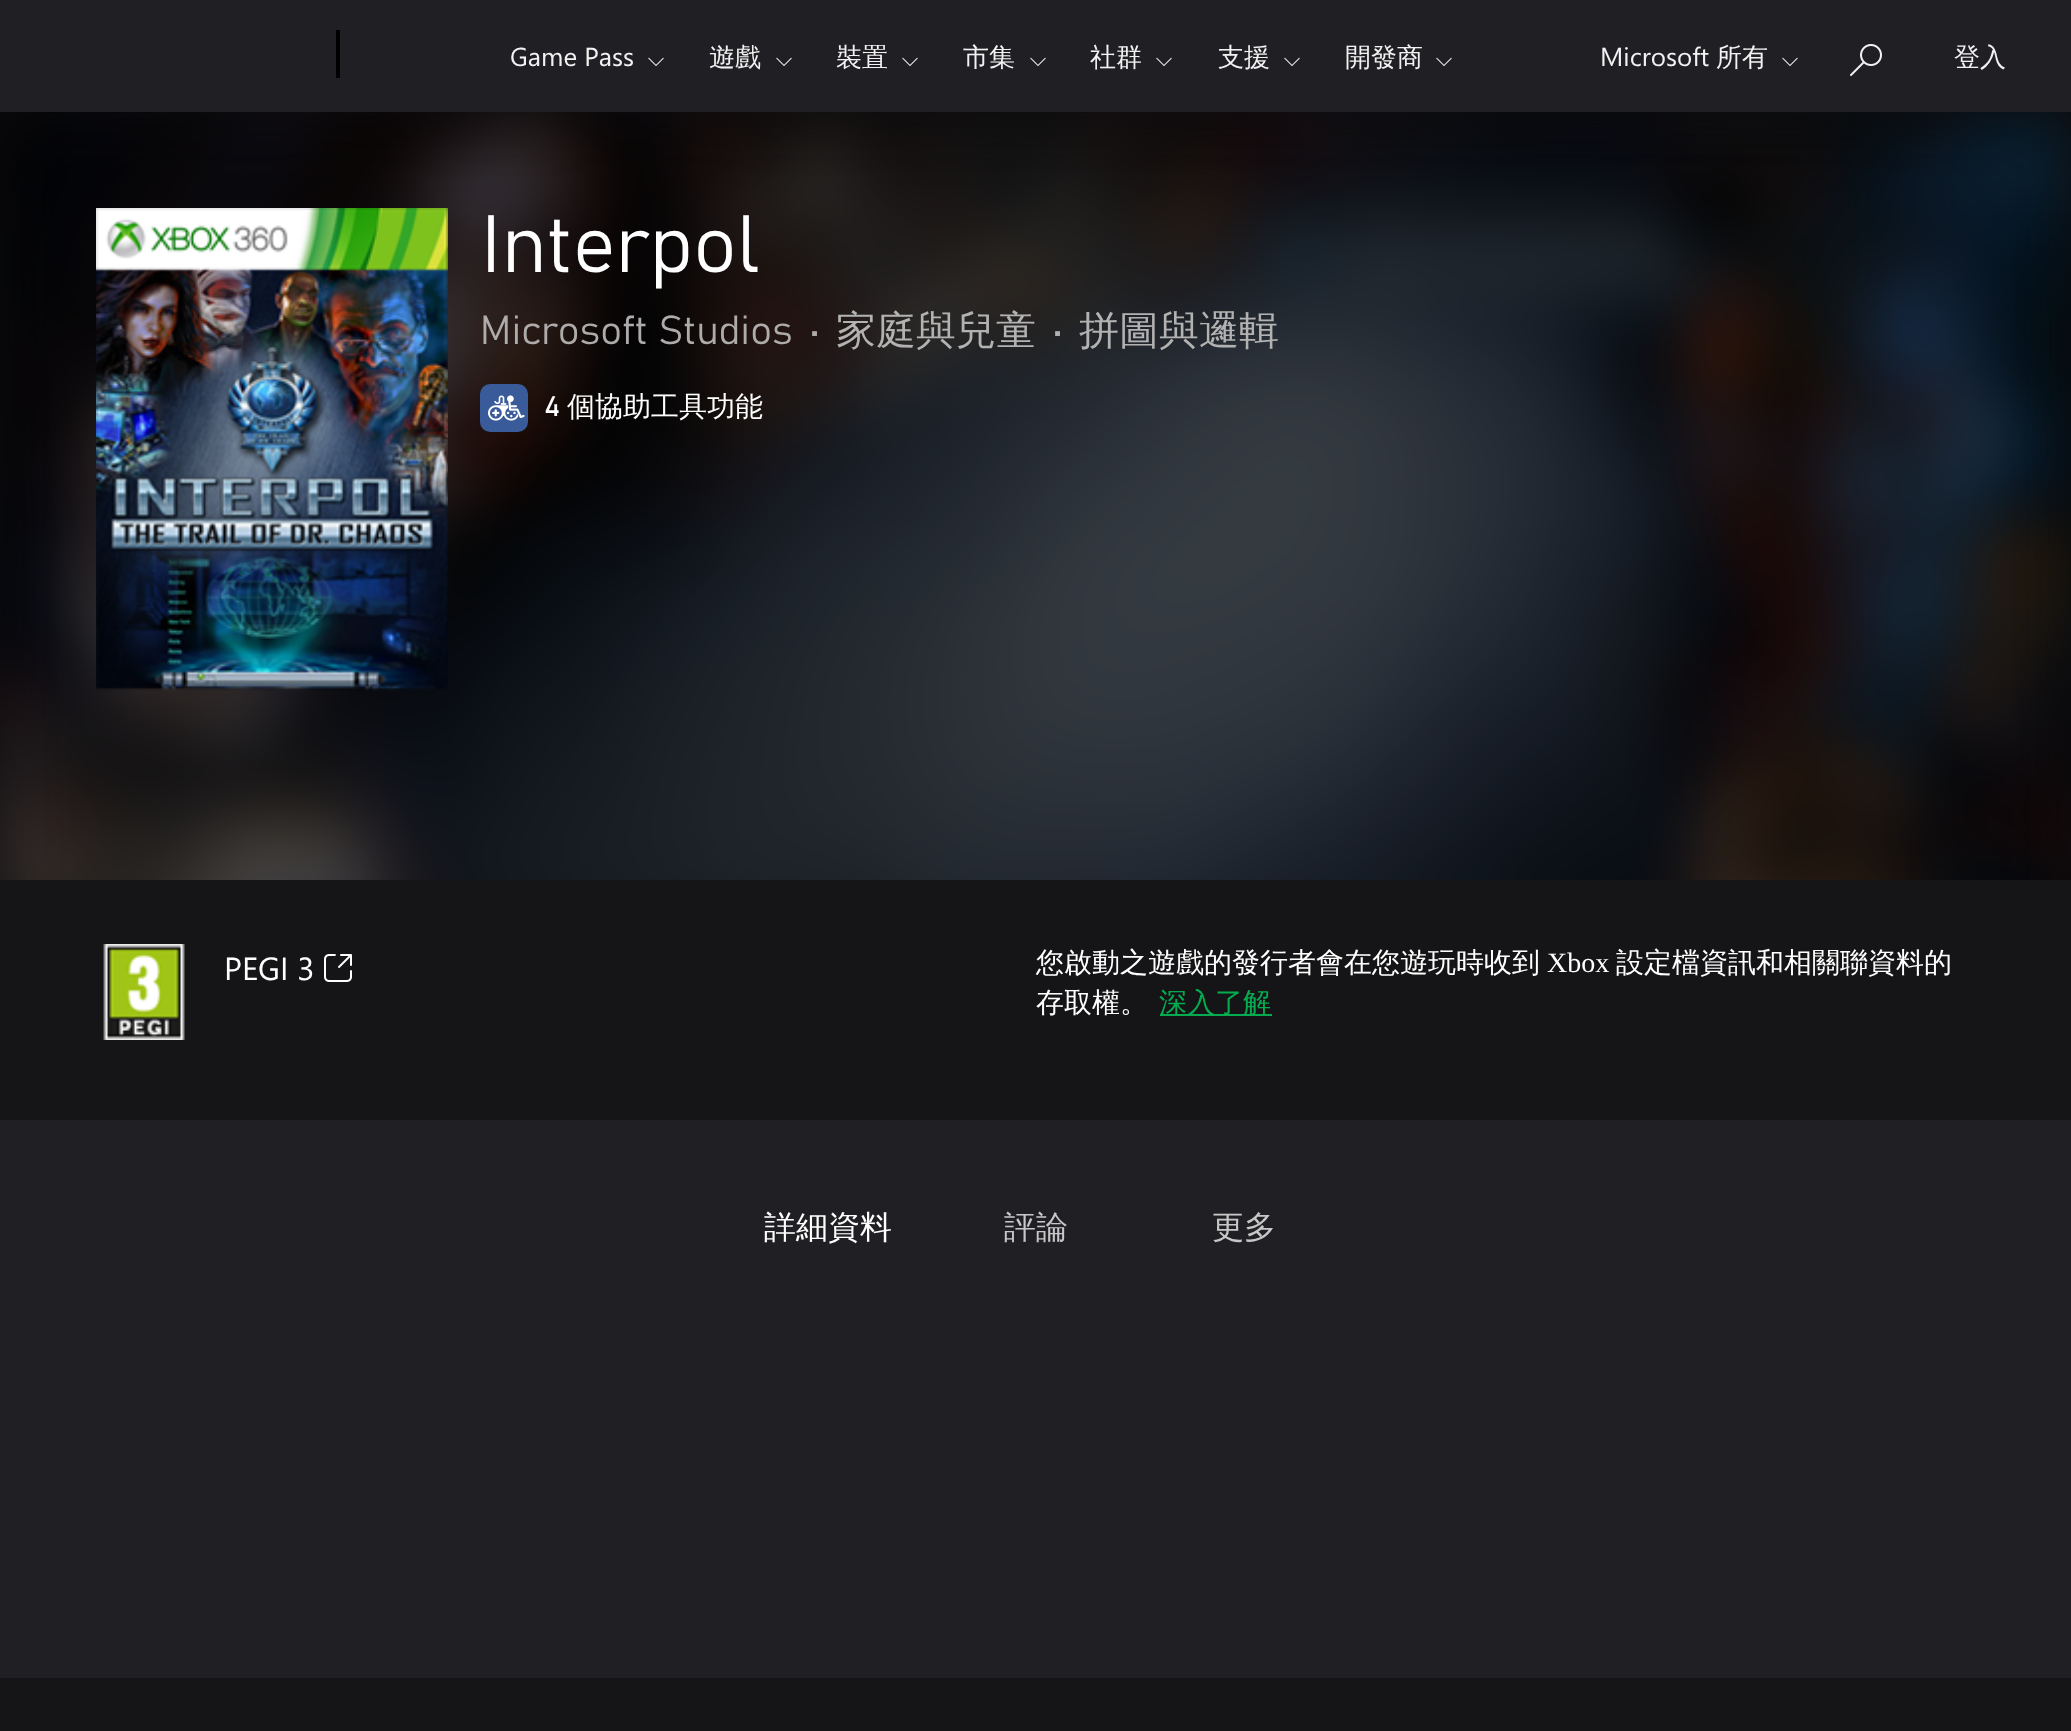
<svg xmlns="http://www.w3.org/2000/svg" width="2071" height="1731">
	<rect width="100%" height="100%" fill="#201F24" />
	<rect x="0" y="112" width="2071" height="768" fill="#0C0B0D" />
	<rect x="336" y="30" width="4" height="48" fill="#000000" />
	<text x="510" y="66" font-family="Segoe UI" font-size="26" fill="#F2F2F2">Game Pass</text>
	<image x="648" y="57" width="16" height="9" href="assets/img1.png" />
	<text x="709" y="66" font-family="WenQuanYi Zen Hei" font-size="26" font-weight="500" fill="#F2F2F2">遊戲</text>
	<image x="776" y="57" width="16" height="9" href="assets/img1.png" />
	<text x="836" y="66" font-family="WenQuanYi Zen Hei" font-size="26" font-weight="500" fill="#F2F2F2">裝置</text>
	<image x="902" y="57" width="16" height="9" href="assets/img1.png" />
	<text x="963" y="66" font-family="WenQuanYi Zen Hei" font-size="26" font-weight="500" fill="#F2F2F2">市集</text>
	<image x="1030" y="57" width="16" height="9" href="assets/img1.png" />
	<text x="1090" y="66" font-family="WenQuanYi Zen Hei" font-size="26" font-weight="500" fill="#F2F2F2">社群</text>
	<image x="1156" y="57" width="16" height="9" href="assets/img1.png" />
	<text x="1218" y="66" font-family="WenQuanYi Zen Hei" font-size="26" font-weight="500" fill="#F2F2F2">支援</text>
	<image x="1284" y="57" width="16" height="9" href="assets/img1.png" />
	<text x="1345" y="66" font-family="WenQuanYi Zen Hei" font-size="26" font-weight="500" fill="#F2F2F2">開發商</text>
	<image x="1436" y="57" width="16" height="9" href="assets/img1.png" />
	<text x="1600" y="66" font-family="Segoe UI" font-size="26" fill="#F2F2F2">Microsoft</text>
	<text x="1716" y="66" font-family="WenQuanYi Zen Hei" font-size="26" font-weight="500" fill="#F2F2F2">所有</text>
	<image x="1782" y="57" width="16" height="9" href="assets/img1.png" />
	<image x="1850" y="44" width="32" height="32" href="assets/img2.png" />
	<text x="1954" y="66" font-family="WenQuanYi Zen Hei" font-size="26" font-weight="500" fill="#F2F2F2">登入</text>
	<image x="0" y="112" width="2071" height="768" href="assets/img3.png" />
	<image x="96" y="208" width="352" height="483" href="assets/img4.png" />
	<text x="480" y="272" font-family="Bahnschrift" font-size="80" font-weight="300" fill="#FFFFFF">Interpol</text>
	<g font-family="Bahnschrift" font-size="40" font-weight="300" fill="#AEABAB">
		<text x="480" y="344">Microsoft Studios</text>
		<text x="809" y="344">•</text>
	</g>
	<text x="836" y="344" font-family="WenQuanYi Zen Hei" font-size="40" font-weight="500" fill="#B3B2B2">家庭與兒童</text>
	<text x="1052" y="344" font-family="Bahnschrift" font-size="40" font-weight="300" fill="#B3B2B2">•</text>
	<text x="1079" y="344" font-family="WenQuanYi Zen Hei" font-size="40" font-weight="500" fill="#B3B2B2">拼圖與邏輯</text>
	<rect x="480" y="384" width="48" height="48" rx="10" fill="#3A5B99" />
	<image x="488" y="395" width="37" height="26" href="assets/img5.png" />
	<text x="544" y="416" font-family="Bahnschrift" font-size="28" fill="#FFFFFF">4</text>
	<text x="567" y="416" font-family="WenQuanYi Zen Hei" font-size="28" font-weight="500" fill="#FFFFFF">個協助工具功能</text>
	<rect x="0" y="880" width="2071" height="240" fill="#151517" />
	<image x="103" y="944" width="82" height="96" href="assets/img6.png" />
	<text x="224" y="980" font-family="Segoe UI" font-size="32" fill="#FFFFFF">PEGI 3</text>
	<image x="324" y="954" width="28" height="28" href="assets/img7.png" />
	<text x="1036" y="972" font-family="WenQuanYi Zen Hei" font-size="28" font-weight="500" fill="#FFFFFF">您啟動之遊戲的發行者會在您遊玩時收到</text>
	<text x="1547" y="972" font-family="Liberation Serif" font-size="28" fill="#FFFFFF">Xbox</text>
	<g font-family="WenQuanYi Zen Hei" font-size="28" font-weight="500" fill="#FFFFFF">
		<text x="1616" y="972">設定檔資訊和相關聯資料的</text>
		<text x="1036" y="1012">存取權。</text>
	</g>
	<rect x="1160" y="1014" width="112" height="2" fill="#04AB4F" />
	<text x="1159" y="1012" font-family="WenQuanYi Zen Hei" font-size="28" font-weight="500" fill="#04AB4F">深入了解</text>
	<text x="764" y="1238" font-family="WenQuanYi Zen Hei" font-size="32" font-weight="500" fill="#FFFFFF">詳細資料</text>
	<g font-family="WenQuanYi Zen Hei" font-size="32" font-weight="500" fill="#C7C7C8">
		<text x="1004" y="1238">評論</text>
		<text x="1212" y="1238">更多</text>
	</g>
	<rect x="0" y="1678" width="2071" height="53" fill="#151517" />
</svg>
